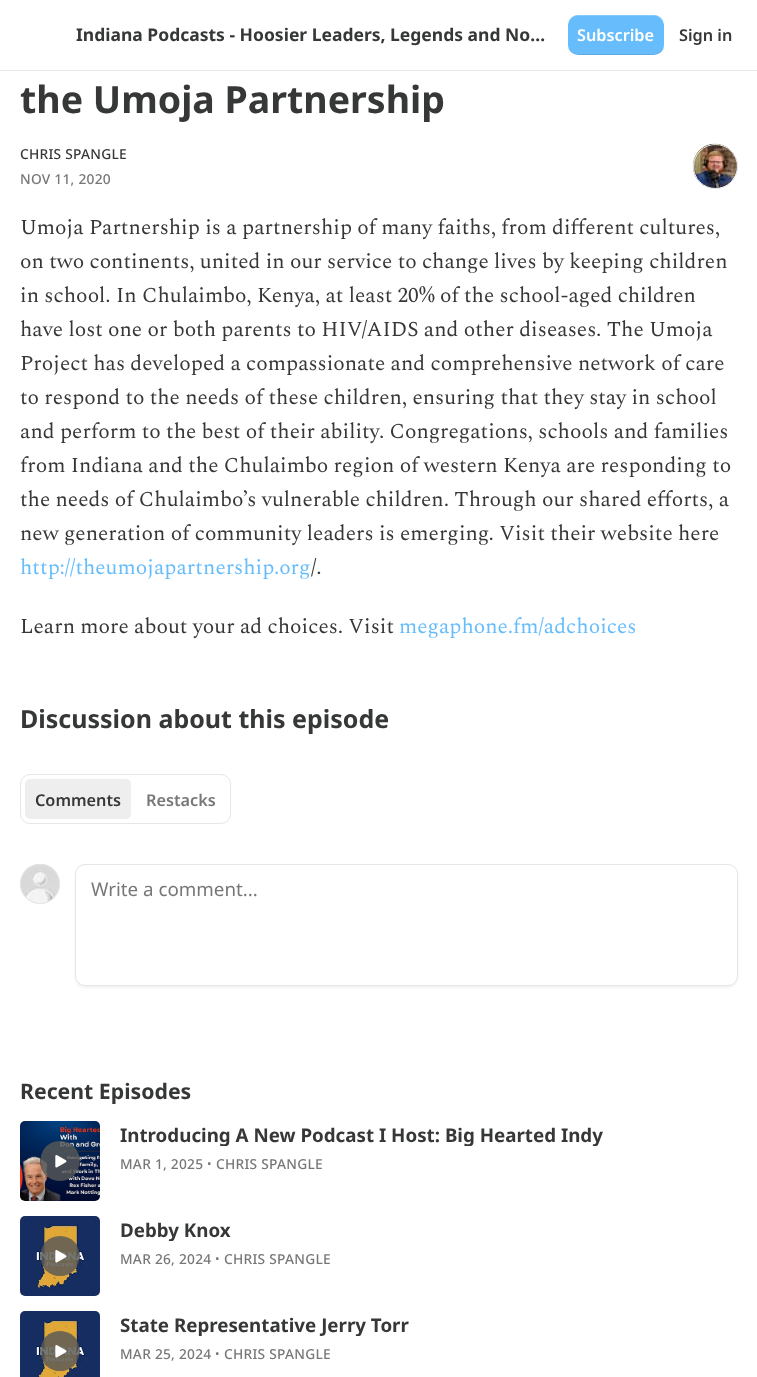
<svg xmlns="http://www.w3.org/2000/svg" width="757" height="1377">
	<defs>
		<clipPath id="clip1"><rect x="120" y="1121" width="618" height="25" /></clipPath>
		<clipPath id="clip2"><rect x="120" y="1216" width="618" height="25" /></clipPath>
		<clipPath id="clip3"><rect x="120" y="1311" width="618" height="25" /></clipPath>
	</defs>
	<rect width="100%" height="100%" fill="#FFFFFF" />
	<rect x="0" y="70" width="757" height="1" fill="#E6E6E6" />
	<text x="76" y="41" font-family="Noto Sans" font-size="17.5" font-weight="700" fill="#363737">Indiana Podcasts - Hoosier Leaders, Legends and No…</text>
	<rect x="568" y="15" width="96" height="40" rx="10" fill="#67BDFC" />
	<path d="M568 44C568 57 581 55 591 55H641C651 55 664 57 664 44C664 49 659 54 654 54H578C572 54 568 49 568 44Z" fill="#000000" fill-opacity="0.1" />
	<path d="M578 16H654C659 16 664 21 664 26C664 13 651 15 641 15H591C581 15 568 13 568 26C568 21 572 16 578 16Z" fill="#FFFFFF" fill-opacity="0.2" />
	<text x="577" y="41" font-family="Noto Sans" font-size="16.25" font-weight="600" fill="#FFFFFF">Subscribe</text>
	<text x="679" y="41" font-family="Noto Sans" font-size="16.25" font-weight="600" fill="#363737">Sign in</text>
	<text x="20" y="113" font-family="Noto Sans" font-size="37.5" font-weight="700" fill="#363737">the Umoja Partnership</text>
	<text x="20" y="159" font-family="Noto Sans" font-size="13.75" font-weight="500" letter-spacing="0.25" fill="#363737">CHRIS SPANGLE</text>
	<text x="20" y="184" font-family="Noto Sans" font-size="13.75" font-weight="500" letter-spacing="0.25" fill="#777777">NOV 11, 2020</text>
	<circle cx="715.5" cy="166.5" r="22" fill="none" stroke="#E6E6E6" />
	<image x="692" y="143" width="46" height="46" href="assets/img1.png" />
	<circle cx="715.5" cy="166.5" r="22" fill="none" stroke="#E6E6E6" />
	<g font-family="Spectral" font-size="21.25" fill="#363737">
		<text x="20" y="234">Umoja Partnership is a partnership of many faiths, from different cultures,</text>
		<text x="20" y="268">on two continents, united in our service to change lives by keeping children</text>
		<text x="20" y="302">in school. In Chulaimbo, Kenya, at least 20% of the school-aged children</text>
		<text x="20" y="336">have lost one or both parents to HIV/AIDS and other diseases. The Umoja</text>
		<text x="20" y="370">Project has developed a compassionate and comprehensive network of care</text>
		<text x="20" y="404">to respond to the needs of these children, ensuring that they stay in school</text>
		<text x="20" y="438">and perform to the best of their ability. Congregations, schools and families</text>
		<text x="20" y="472">from Indiana and the Chulaimbo region of western Kenya are responding to</text>
		<text x="20" y="506">the needs of Chulaimbo’s vulnerable children. Through our shared efforts, a</text>
		<text x="20" y="540">new generation of community leaders is emerging. Visit their website here</text>
	</g>
	<text x="20" y="574" font-family="Spectral" font-size="21.25" fill="#67BDFC">http://theumojapartnership.org</text>
	<g font-family="Spectral" font-size="21.25" fill="#363737">
		<text x="311" y="574">/.</text>
		<text x="20" y="633">Learn more about your ad choices. Visit</text>
	</g>
	<text x="399" y="633" font-family="Spectral" font-size="21.25" fill="#67BDFC">megaphone.fm/adchoices</text>
	<text x="20" y="728" font-family="Noto Sans" font-size="25" font-weight="700" fill="#363737">Discussion about this episode</text>
	<rect x="20.5" y="774.5" width="210" height="49" rx="9.5" fill="none" stroke="#E6E6E6" />
	<rect x="25" y="779" width="106" height="40" rx="5" fill="#EEEEEE" />
	<text x="146" y="806" font-family="Noto Sans" font-size="16.25" font-weight="600" fill="#777777">Restacks</text>
	<text x="35" y="806" font-family="Noto Sans" font-size="16.25" font-weight="600" fill="#363737">Comments</text>
	<circle cx="40" cy="884" r="19.5" fill="none" stroke="#E6E6E6" />
	<image x="20" y="864" width="40" height="39" href="assets/img2.png" />
	<circle cx="40" cy="884" r="19.5" fill="none" stroke="#E6E6E6" />
	<rect x="75" y="865" width="663" height="123" rx="10" fill="#000000" fill-opacity="0.05" filter="blur(1px)" />
	<rect x="75.5" y="864.5" width="662" height="121" rx="9.5" fill="#FFFFFF" stroke="#E6E6E6" />
	<text x="91" y="896" font-family="Noto Sans" font-size="18.75" fill="#777777">Write a comment...</text>
	<text x="20" y="1099" font-family="Noto Sans" font-size="21.25" font-weight="700" fill="#363737">Recent Episodes</text>
	<image x="20" y="1121" width="80" height="80" href="assets/img3.png" />
	<circle cx="60" cy="1161" r="20" fill="#282828" fill-opacity="0.75" />
	<path d="M60 1141C34 1141 34 1181 60 1181C86 1181 86 1141 60 1141Z" fill="#000000" fill-opacity="0.1" />
	<path d="M60 1141C34 1141 34 1181 60 1181C86 1181 86 1141 60 1141Z" fill="#FFFFFF" fill-opacity="0.2" />
	<image x="55" y="1155" width="12" height="13" href="assets/img4.png" />
	<g clip-path="url(#clip1)">
		<text x="120" y="1142" font-family="Noto Sans" font-size="18.75" font-weight="700" fill="#363737">Introducing A New Podcast I Host: Big Hearted Indy</text>
	</g>
	<text x="120" y="1169" font-family="Noto Sans" font-size="13.75" font-weight="500" letter-spacing="0.25" fill="#777777">MAR 1, 2025</text>
	<text x="207" y="1168" font-family="Noto Sans" font-size="12" letter-spacing="0.25" fill="#777777">•</text>
	<text x="216" y="1169" font-family="Noto Sans" font-size="13.75" font-weight="500" letter-spacing="0.25" fill="#777777">CHRIS SPANGLE</text>
	<image x="20" y="1216" width="80" height="80" href="assets/img5.png" />
	<circle cx="60" cy="1256" r="20" fill="#282828" fill-opacity="0.75" />
	<path d="M60 1236C34 1236 34 1276 60 1276C86 1276 86 1236 60 1236Z" fill="#000000" fill-opacity="0.1" />
	<path d="M60 1236C34 1236 34 1276 60 1276C86 1276 86 1236 60 1236Z" fill="#FFFFFF" fill-opacity="0.2" />
	<image x="55" y="1250" width="12" height="13" href="assets/img6.png" />
	<g clip-path="url(#clip2)">
		<text x="120" y="1237" font-family="Noto Sans" font-size="18.75" font-weight="700" fill="#363737">Debby Knox</text>
	</g>
	<text x="120" y="1264" font-family="Noto Sans" font-size="13.75" font-weight="500" letter-spacing="0.25" fill="#777777">MAR 26, 2024</text>
	<text x="215" y="1263" font-family="Noto Sans" font-size="12" letter-spacing="0.25" fill="#777777">•</text>
	<text x="224" y="1264" font-family="Noto Sans" font-size="13.75" font-weight="500" letter-spacing="0.25" fill="#777777">CHRIS SPANGLE</text>
	<image x="20" y="1311" width="80" height="66" href="assets/img7.png" />
	<circle cx="60" cy="1351" r="20" fill="#282828" fill-opacity="0.75" />
	<path d="M60 1331C34 1331 34 1371 60 1371C86 1371 86 1331 60 1331Z" fill="#000000" fill-opacity="0.1" />
	<path d="M60 1331C34 1331 34 1371 60 1371C86 1371 86 1331 60 1331Z" fill="#FFFFFF" fill-opacity="0.2" />
	<image x="55" y="1345" width="12" height="13" href="assets/img8.png" />
	<g clip-path="url(#clip3)">
		<text x="120" y="1332" font-family="Noto Sans" font-size="18.75" font-weight="700" fill="#363737">State Representative Jerry Torr</text>
	</g>
	<text x="120" y="1359" font-family="Noto Sans" font-size="13.75" font-weight="500" letter-spacing="0.25" fill="#777777">MAR 25, 2024</text>
	<text x="215" y="1358" font-family="Noto Sans" font-size="12" letter-spacing="0.25" fill="#777777">•</text>
	<text x="224" y="1359" font-family="Noto Sans" font-size="13.75" font-weight="500" letter-spacing="0.25" fill="#777777">CHRIS SPANGLE</text>
</svg>
